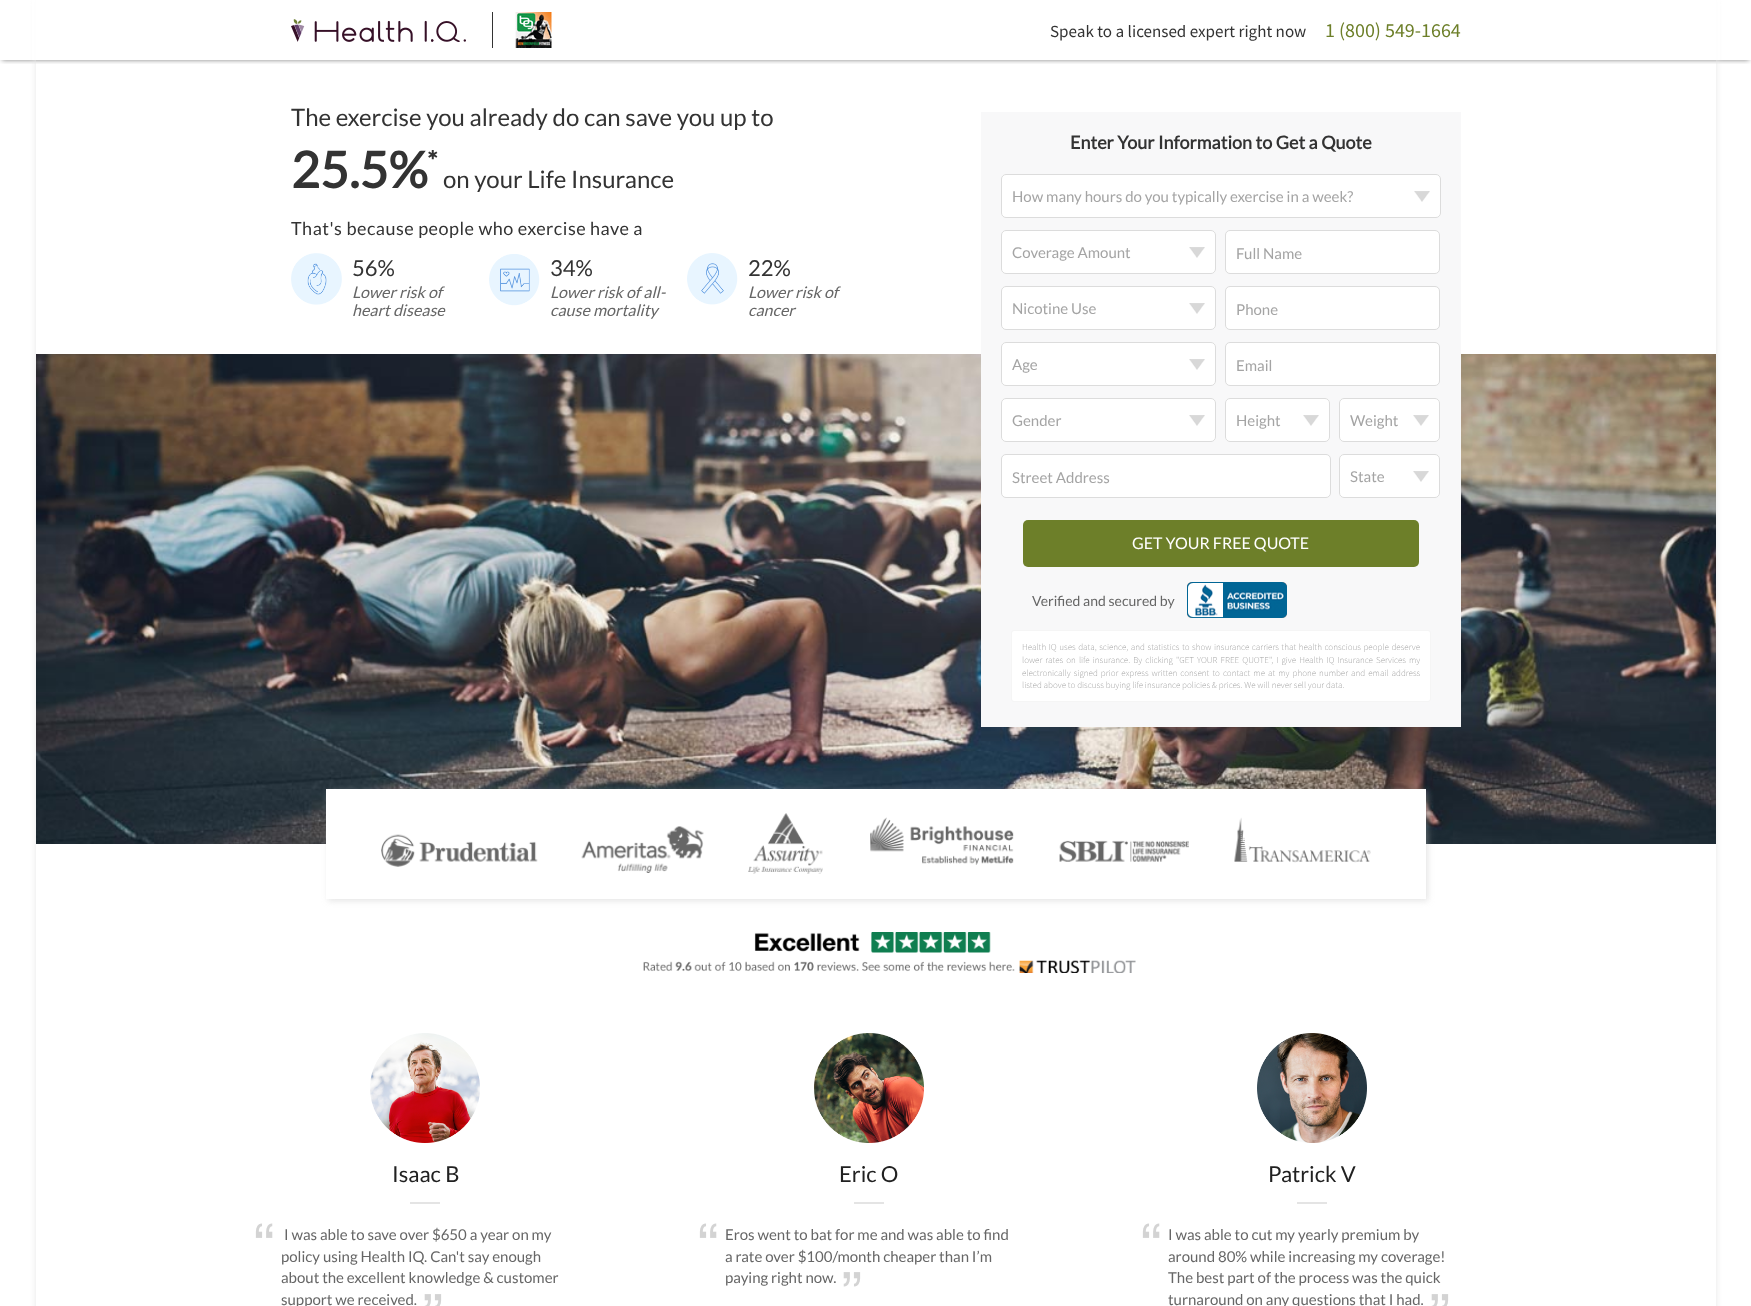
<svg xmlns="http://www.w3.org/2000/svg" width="1751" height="1306">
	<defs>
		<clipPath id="clip1"><rect x="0" y="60" width="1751" height="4" /></clipPath>
		<clipPath id="clip2"><path d="M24 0H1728V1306H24ZM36 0H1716V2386H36Z" clip-rule="evenodd" /></clipPath>
	</defs>
	<rect width="100%" height="100%" fill="#FFFFFF" />
	<g clip-path="url(#clip1)">
		<rect x="2" y="4" width="1747" height="56" fill="#000000" fill-opacity="0.5" filter="blur(2.5px)" />
	</g>
	<g clip-path="url(#clip2)">
		<rect x="36" y="0" width="1680" height="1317" fill="#E8E8E8" filter="blur(3.5px)" />
	</g>
	<rect x="32" y="0" width="1688" height="60" fill="#FFFFFF" fill-opacity="0.85" />
	<image x="291" y="19" width="175" height="23" href="assets/img1.png" />
	<rect x="492" y="12" width="1" height="36" fill="#333333" />
	<image x="514" y="12" width="38" height="36" href="assets/img2.png" />
	<text x="1050" y="37" font-family="Source Sans Pro" font-size="17" fill="#333333">Speak to a licensed expert right now</text>
	<text x="1325" y="37" font-family="Source Sans Pro" font-size="20" fill="#6D7F29">1 (800) 549-1664</text>
	<text x="291" y="126" font-family="Lato" font-size="24" fill="#333333">The exercise you already do can save you up to</text>
	<text x="291" y="188" font-family="Lato" font-size="50" font-weight="700" fill="#333333">25.5%</text>
	<text x="427" y="171" font-family="Lato" font-size="27" font-weight="700" fill="#333333">*</text>
	<text x="443" y="188" font-family="Lato" font-size="24" fill="#333333">on your Life Insurance</text>
	<text x="291" y="235" font-family="Lato" font-size="18" letter-spacing="0.5" fill="#333333">That's because people who exercise have a</text>
	<image x="291" y="253" width="51" height="52" href="assets/img3.png" />
	<text x="352" y="276" font-family="Lato" font-size="22" fill="#333333">56%</text>
	<g font-family="Lato" font-size="16" font-style="italic" fill="#666666">
		<text x="352" y="298">Lower risk of</text>
		<text x="352" y="316">heart disease</text>
	</g>
	<image x="489" y="254" width="51" height="52" href="assets/img4.png" />
	<text x="550" y="276" font-family="Lato" font-size="22" fill="#333333">34%</text>
	<g font-family="Lato" font-size="16" font-style="italic" fill="#666666">
		<text x="550" y="298">Lower risk of all-</text>
		<text x="550" y="316">cause mortality</text>
	</g>
	<image x="687" y="253" width="51" height="52" href="assets/img5.png" />
	<text x="748" y="276" font-family="Lato" font-size="22" fill="#333333">22%</text>
	<g font-family="Lato" font-size="16" font-style="italic" fill="#666666">
		<text x="748" y="298">Lower risk of</text>
		<text x="748" y="316">cancer</text>
	</g>
	<image x="36" y="354" width="1680" height="490" href="assets/img8.png" />
	<rect x="981" y="112" width="480" height="615" fill="#F8F8F9" />
	<text x="1070" y="149" font-family="Lato" font-size="18" font-weight="700" fill="#333333">Enter Your Information to Get a Quote</text>
	<rect x="1001" y="174" width="440" height="44" rx="5" fill="#FFFFFF" />
	<image x="1414" y="191" width="16" height="11" href="assets/img6.png" />
	<rect x="1001.5" y="174.5" width="439" height="43" rx="4.5" fill="none" stroke="#DCDCDC" />
	<text x="1012" y="202" font-family="Lato" font-size="15" fill="#A4A4A4">How many hours do you typically exercise in a week?</text>
	<rect x="1001" y="230" width="215" height="44" rx="5" fill="#FFFFFF" />
	<image x="1189" y="247" width="16" height="11" href="assets/img6.png" />
	<rect x="1001.5" y="230.5" width="214" height="43" rx="4.5" fill="none" stroke="#DCDCDC" />
	<text x="1012" y="258" font-family="Lato" font-size="15" fill="#A4A4A4">Coverage Amount</text>
	<rect x="1225.5" y="230.5" width="214" height="43" rx="4.5" fill="#FFFFFF" stroke="#DCDCDC" />
	<text x="1236" y="259" font-family="Lato" font-size="15" fill="#A4A4A4">Full Name</text>
	<rect x="1001" y="286" width="215" height="44" rx="5" fill="#FFFFFF" />
	<image x="1189" y="303" width="16" height="11" href="assets/img6.png" />
	<rect x="1001.5" y="286.5" width="214" height="43" rx="4.5" fill="none" stroke="#DCDCDC" />
	<text x="1012" y="314" font-family="Lato" font-size="15" fill="#A4A4A4">Nicotine Use</text>
	<rect x="1225.5" y="286.5" width="214" height="43" rx="4.5" fill="#FFFFFF" stroke="#DCDCDC" />
	<text x="1236" y="315" font-family="Lato" font-size="15" fill="#A4A4A4">Phone</text>
	<rect x="1001" y="342" width="215" height="44" rx="5" fill="#FFFFFF" />
	<image x="1189" y="359" width="16" height="11" href="assets/img6.png" />
	<rect x="1001.5" y="342.5" width="214" height="43" rx="4.5" fill="none" stroke="#DCDCDC" />
	<text x="1012" y="370" font-family="Lato" font-size="15" fill="#A4A4A4">Age</text>
	<rect x="1225.5" y="342.5" width="214" height="43" rx="4.5" fill="#FFFFFF" stroke="#DCDCDC" />
	<text x="1236" y="371" font-family="Lato" font-size="15" fill="#A4A4A4">Email</text>
	<rect x="1001" y="398" width="215" height="44" rx="5" fill="#FFFFFF" />
	<image x="1189" y="415" width="16" height="11" href="assets/img6.png" />
	<rect x="1001.5" y="398.5" width="214" height="43" rx="4.5" fill="none" stroke="#DCDCDC" />
	<text x="1012" y="426" font-family="Lato" font-size="15" fill="#A4A4A4">Gender</text>
	<rect x="1225" y="398" width="105" height="44" rx="5" fill="#FFFFFF" />
	<image x="1303" y="415" width="16" height="11" href="assets/img6.png" />
	<rect x="1225.5" y="398.5" width="104" height="43" rx="4.5" fill="none" stroke="#DCDCDC" />
	<text x="1236" y="426" font-family="Lato" font-size="15" fill="#A4A4A4">Height</text>
	<rect x="1339" y="398" width="101" height="44" rx="5" fill="#FFFFFF" />
	<image x="1413" y="415" width="16" height="11" href="assets/img6.png" />
	<rect x="1339.5" y="398.5" width="100" height="43" rx="4.5" fill="none" stroke="#DCDCDC" />
	<text x="1350" y="426" font-family="Lato" font-size="15" fill="#A4A4A4">Weight</text>
	<rect x="1001.5" y="454.5" width="329" height="43" rx="4.5" fill="#FFFFFF" stroke="#DCDCDC" />
	<text x="1012" y="483" font-family="Lato" font-size="15" fill="#A4A4A4">Street Address</text>
	<rect x="1339" y="454" width="101" height="44" rx="5" fill="#FFFFFF" />
	<image x="1413" y="471" width="16" height="11" href="assets/img6.png" />
	<rect x="1339.5" y="454.5" width="100" height="43" rx="4.5" fill="none" stroke="#DCDCDC" />
	<text x="1350" y="482" font-family="Lato" font-size="15" fill="#A4A4A4">State</text>
	<rect x="1023" y="520" width="396" height="47" rx="5" fill="#6D7F29" />
	<text x="1132" y="549" font-family="Lato" font-size="16" fill="#FFFFFF">GET YOUR FREE QUOTE</text>
	<text x="1032" y="606" font-family="Lato" font-size="14" fill="#666666">Verified and secured by</text>
	<image x="1187" y="582" width="100" height="36" href="assets/img7.png" />
	<rect x="1011.5" y="630.5" width="419" height="71" rx="2.5" fill="#FFFFFF" stroke="#F5F5F5" />
	<g font-family="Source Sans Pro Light" font-size="9" font-weight="300" fill="#A4A4A4">
		<text x="1022" y="650" word-spacing="0.75">Health IQ uses data, science, and statistics to show insurance carriers that health conscious people deserve</text>
		<text x="1022" y="663" word-spacing="1.25">lower rates on life insurance. By clicking "GET YOUR FREE QUOTE", I give Health IQ Insurance Services my</text>
		<text x="1022" y="676" word-spacing="1.2">electronically signed prior express written consent to contact me at my phone number and email address</text>
		<text x="1022" y="688">listed above to discuss buying life insurance policies &amp; prices. We will never sell your data.</text>
	</g>
	<rect x="328" y="791" width="1100" height="110" fill="#BEBEBE" fill-opacity="0.4" filter="blur(3px)" />
	<rect x="326" y="789" width="1100" height="110" fill="#FFFFFF" />
	<image x="381" y="813" width="990" height="61" href="assets/img9.png" />
	<image x="643" y="932" width="493" height="41" href="assets/img10.png" />
	<image x="370" y="1033" width="110" height="110" href="assets/img11.png" />
	<text x="392" y="1182" font-family="Lato" font-size="22" fill="#212121">Isaac B</text>
	<rect x="410" y="1202" width="30" height="2" fill="#E4E4E4" />
	<image x="255" y="1223" width="18" height="15" href="assets/img12.png" />
	<g font-family="Lato" font-size="15" fill="#666666">
		<text x="284" y="1240">I was able to save over $650 a year on my</text>
		<text x="281" y="1262">policy using Health IQ. Can't say enough</text>
		<text x="281" y="1283">about the excellent knowledge &amp; customer</text>
		<text x="281" y="1305">support we received.</text>
	</g>
	<image x="424" y="1294" width="18" height="12" href="assets/img13.png" />
	<image x="814" y="1033" width="110" height="110" href="assets/img14.png" />
	<text x="839" y="1182" font-family="Lato" font-size="22" fill="#212121">Eric O</text>
	<rect x="854" y="1202" width="30" height="2" fill="#E4E4E4" />
	<image x="699" y="1223" width="18" height="15" href="assets/img12.png" />
	<g font-family="Lato" font-size="15" fill="#666666">
		<text x="725" y="1240">Eros went to bat for me and was able to find</text>
		<text x="725" y="1262">a rate over $100/month cheaper than I’m</text>
		<text x="725" y="1283">paying right now.</text>
	</g>
	<image x="843" y="1272" width="18" height="15" href="assets/img15.png" />
	<image x="1257" y="1033" width="110" height="110" href="assets/img16.png" />
	<text x="1268" y="1182" font-family="Lato" font-size="22" fill="#212121">Patrick V</text>
	<rect x="1297" y="1202" width="30" height="2" fill="#E4E4E4" />
	<image x="1142" y="1223" width="18" height="15" href="assets/img12.png" />
	<g font-family="Lato" font-size="15" fill="#666666">
		<text x="1168" y="1240">I was able to cut my yearly premium by</text>
		<text x="1168" y="1262">around 80% while increasing my coverage!</text>
		<text x="1168" y="1283">The best part of the process was the quick</text>
		<text x="1168" y="1305">turnaround on any questions that I had.</text>
	</g>
	<image x="1431" y="1294" width="18" height="12" href="assets/img13.png" />
</svg>
